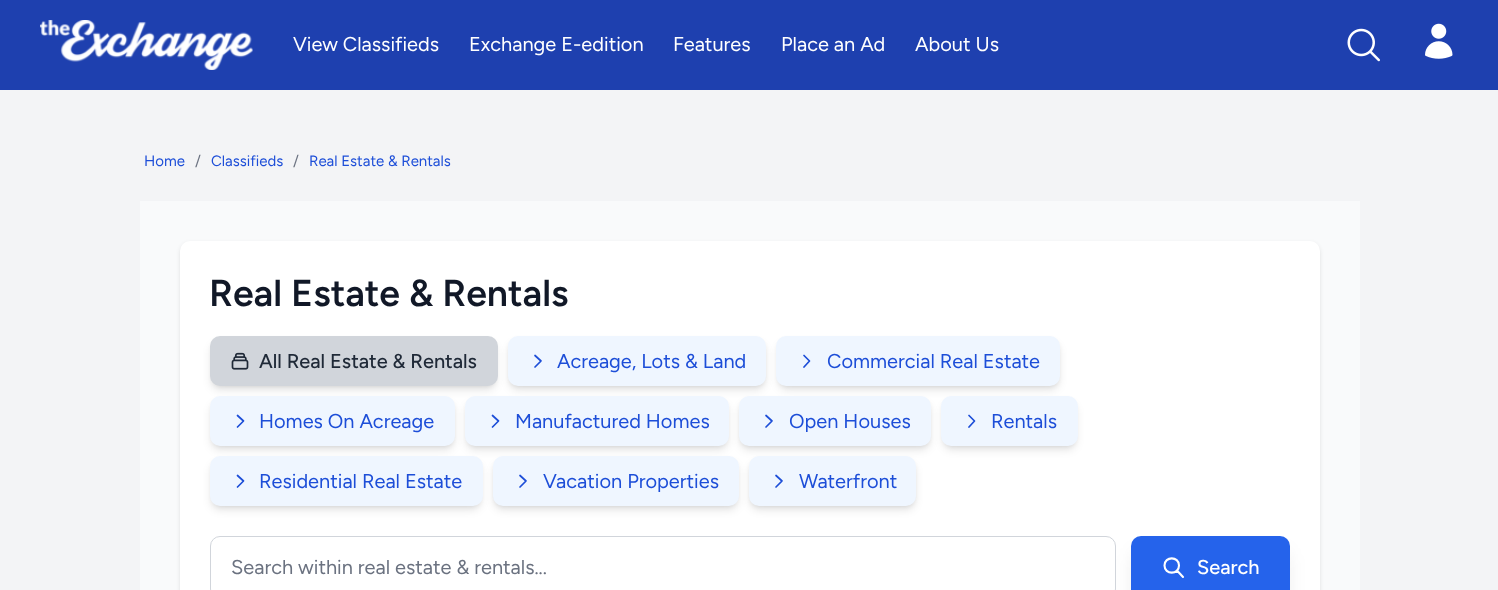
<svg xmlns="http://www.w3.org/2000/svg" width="1498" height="590">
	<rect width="100%" height="100%" fill="#F3F4F6" />
	<rect x="0" y="0" width="1498" height="90" fill="#1E40AF" />
	<image x="40" y="20" width="213" height="50" href="assets/img1.png" />
	<g font-family="'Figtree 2'" font-size="20" font-weight="300" fill="#FFFFFF">
		<text x="293" y="51">View Classifieds</text>
		<text x="469" y="51">Exchange E-edition</text>
		<text x="673" y="51">Features</text>
		<text x="781" y="51">Place an Ad</text>
		<text x="915" y="51">About Us</text>
	</g>
	<image x="1347" y="28" width="33" height="34" href="assets/img2.png" />
	<image x="1425" y="23" width="28" height="36" href="assets/img3.png" />
	<text x="144" y="166" font-family="'Figtree 2'" font-size="15" font-weight="300" fill="#1D4ED8">Home</text>
	<text x="195" y="166" font-family="'Figtree 2'" font-size="15" font-weight="300" fill="#6B7280">/</text>
	<text x="211" y="166" font-family="'Figtree 2'" font-size="15" font-weight="300" fill="#1D4ED8">Classifieds</text>
	<text x="293" y="166" font-family="'Figtree 2'" font-size="15" font-weight="300" fill="#6B7280">/</text>
	<text x="309" y="166" font-family="'Figtree 2'" font-size="15" font-weight="300" fill="#1D4ED8">Real Estate &amp; Rentals</text>
	<rect x="140" y="201" width="1220" height="389" fill="#F9FAFB" />
	<rect x="180" y="243" width="1140" height="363" rx="10" fill="#000000" fill-opacity="0.1" filter="blur(2px)" />
	<rect x="180" y="241" width="1140" height="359" rx="10" fill="#FFFFFF" />
	<text x="209" y="306" font-family="Figtree" font-size="37.5" font-weight="600" fill="#111827">Real Estate &amp; Rentals</text>
	<rect x="213" y="341" width="282" height="45" rx="8" fill="#000000" fill-opacity="0.1" filter="blur(2.5px)" />
	<rect x="211" y="343" width="285" height="47" rx="9" fill="#000000" fill-opacity="0.1" filter="blur(4px)" />
	<rect x="210" y="336" width="288" height="50" rx="10" fill="#D1D5DB" />
	<image x="231" y="352" width="18" height="18" href="assets/img4.png" />
	<text x="259" y="368" font-family="Figtree" font-size="20" font-weight="300" fill="#1F2937">All Real Estate &amp; Rentals</text>
	<rect x="510" y="341" width="254" height="45" rx="8" fill="#000000" fill-opacity="0.1" filter="blur(2.5px)" />
	<rect x="509" y="343" width="256" height="47" rx="9" fill="#000000" fill-opacity="0.1" filter="blur(4px)" />
	<rect x="508" y="336" width="258" height="50" rx="10" fill="#EFF6FF" />
	<path d="M535 355.5L541 361L535 367" fill="none" stroke="#1D4ED8" stroke-width="1.7" stroke-linecap="round" stroke-linejoin="round" />
	<text x="557" y="368" font-family="'Figtree 2'" font-size="20" font-weight="300" fill="#1D4ED8">Acreage, Lots &amp; Land</text>
	<rect x="779" y="341" width="279" height="45" rx="8" fill="#000000" fill-opacity="0.1" filter="blur(2.5px)" />
	<rect x="778" y="343" width="281" height="47" rx="9" fill="#000000" fill-opacity="0.1" filter="blur(4px)" />
	<rect x="776" y="336" width="284" height="50" rx="10" fill="#EFF6FF" />
	<path d="M804 355.5L809.5 361L804 367" fill="none" stroke="#1D4ED8" stroke-width="1.7" stroke-linecap="round" stroke-linejoin="round" />
	<text x="827" y="368" font-family="'Figtree 2'" font-size="20" font-weight="300" fill="#1D4ED8">Commercial Real Estate</text>
	<rect x="213" y="401" width="240" height="45" rx="8" fill="#000000" fill-opacity="0.1" filter="blur(2.5px)" />
	<rect x="211" y="403" width="243" height="47" rx="9" fill="#000000" fill-opacity="0.1" filter="blur(4px)" />
	<rect x="210" y="396" width="245" height="50" rx="10" fill="#EFF6FF" />
	<path d="M237.5 415.5L243.5 421L237.5 427" fill="none" stroke="#1D4ED8" stroke-width="1.7" stroke-linecap="round" stroke-linejoin="round" />
	<text x="259" y="428" font-family="'Figtree 2'" font-size="20" font-weight="300" fill="#1D4ED8">Homes On Acreage</text>
	<rect x="468" y="401" width="258" height="45" rx="8" fill="#000000" fill-opacity="0.1" filter="blur(2.5px)" />
	<rect x="466" y="403" width="262" height="47" rx="9" fill="#000000" fill-opacity="0.1" filter="blur(4px)" />
	<rect x="465" y="396" width="264" height="50" rx="10" fill="#EFF6FF" />
	<path d="M492.5 415.5L498.5 421L492.5 427" fill="none" stroke="#1D4ED8" stroke-width="1.7" stroke-linecap="round" stroke-linejoin="round" />
	<text x="515" y="428" font-family="'Figtree 2'" font-size="20" font-weight="300" fill="#1D4ED8">Manufactured Homes</text>
	<rect x="741" y="401" width="188" height="45" rx="8" fill="#000000" fill-opacity="0.1" filter="blur(2.5px)" />
	<rect x="740" y="403" width="190" height="47" rx="9" fill="#000000" fill-opacity="0.1" filter="blur(4px)" />
	<rect x="739" y="396" width="192" height="50" rx="10" fill="#EFF6FF" />
	<path d="M766 415.5L772 421L766 427" fill="none" stroke="#1D4ED8" stroke-width="1.7" stroke-linecap="round" stroke-linejoin="round" />
	<text x="789" y="428" font-family="'Figtree 2'" font-size="20" font-weight="300" fill="#1D4ED8">Open Houses</text>
	<rect x="944" y="401" width="131" height="45" rx="8" fill="#000000" fill-opacity="0.1" filter="blur(2.5px)" />
	<rect x="943" y="403" width="133" height="47" rx="9" fill="#000000" fill-opacity="0.1" filter="blur(4px)" />
	<rect x="941" y="396" width="137" height="50" rx="10" fill="#EFF6FF" />
	<path d="M969 415.5L974.5 421L969 427" fill="none" stroke="#1D4ED8" stroke-width="1.7" stroke-linecap="round" stroke-linejoin="round" />
	<text x="991" y="428" font-family="'Figtree 2'" font-size="20" font-weight="300" fill="#1D4ED8">Rentals</text>
	<rect x="213" y="461" width="267" height="45" rx="8" fill="#000000" fill-opacity="0.1" filter="blur(2.5px)" />
	<rect x="211" y="463" width="270" height="47" rx="9" fill="#000000" fill-opacity="0.1" filter="blur(4px)" />
	<rect x="210" y="456" width="273" height="50" rx="10" fill="#EFF6FF" />
	<path d="M237.5 475.5L243.5 481L237.5 487" fill="none" stroke="#1D4ED8" stroke-width="1.7" stroke-linecap="round" stroke-linejoin="round" />
	<text x="259" y="488" font-family="'Figtree 2'" font-size="20" font-weight="300" fill="#1D4ED8">Residential Real Estate</text>
	<rect x="495" y="461" width="241" height="45" rx="8" fill="#000000" fill-opacity="0.1" filter="blur(2.5px)" />
	<rect x="494" y="463" width="244" height="47" rx="9" fill="#000000" fill-opacity="0.1" filter="blur(4px)" />
	<rect x="493" y="456" width="246" height="50" rx="10" fill="#EFF6FF" />
	<path d="M520 475.5L526 481L520 487" fill="none" stroke="#1D4ED8" stroke-width="1.7" stroke-linecap="round" stroke-linejoin="round" />
	<text x="543" y="488" font-family="'Figtree 2'" font-size="20" font-weight="300" fill="#1D4ED8">Vacation Properties</text>
	<rect x="751" y="461" width="163" height="45" rx="8" fill="#000000" fill-opacity="0.1" filter="blur(2.5px)" />
	<rect x="750" y="463" width="165" height="47" rx="9" fill="#000000" fill-opacity="0.1" filter="blur(4px)" />
	<rect x="749" y="456" width="167" height="50" rx="10" fill="#EFF6FF" />
	<path d="M776 475.5L782 481L776 487" fill="none" stroke="#1D4ED8" stroke-width="1.7" stroke-linecap="round" stroke-linejoin="round" />
	<text x="799" y="488" font-family="'Figtree 2'" font-size="20" font-weight="300" fill="#1D4ED8">Waterfront</text>
	<rect x="210.5" y="536.5" width="905" height="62" rx="9.5" fill="none" stroke="#D1D5DB" />
	<text x="231" y="574" font-family="'Figtree 2'" font-size="20" font-weight="300" fill="#6B7280">Search within real estate &amp; rentals...</text>
	<rect x="1135" y="553" width="151" height="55" rx="6" fill="#000000" fill-opacity="0.1" filter="blur(9.5px)" />
	<rect x="1131" y="536" width="159" height="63" rx="10" fill="#2563EB" />
	<path d="M1183 577L1177 570.5M1179 565.5C1179 575 1164.5 575 1164.5 565.5C1164.5 556 1179 556 1179 565.5Z" fill="none" stroke="#FFFFFF" stroke-width="2.1" stroke-linecap="round" stroke-linejoin="round" />
	<text x="1197" y="574" font-family="Figtree" font-size="20" font-weight="300" fill="#FFFFFF">Search</text>
</svg>
